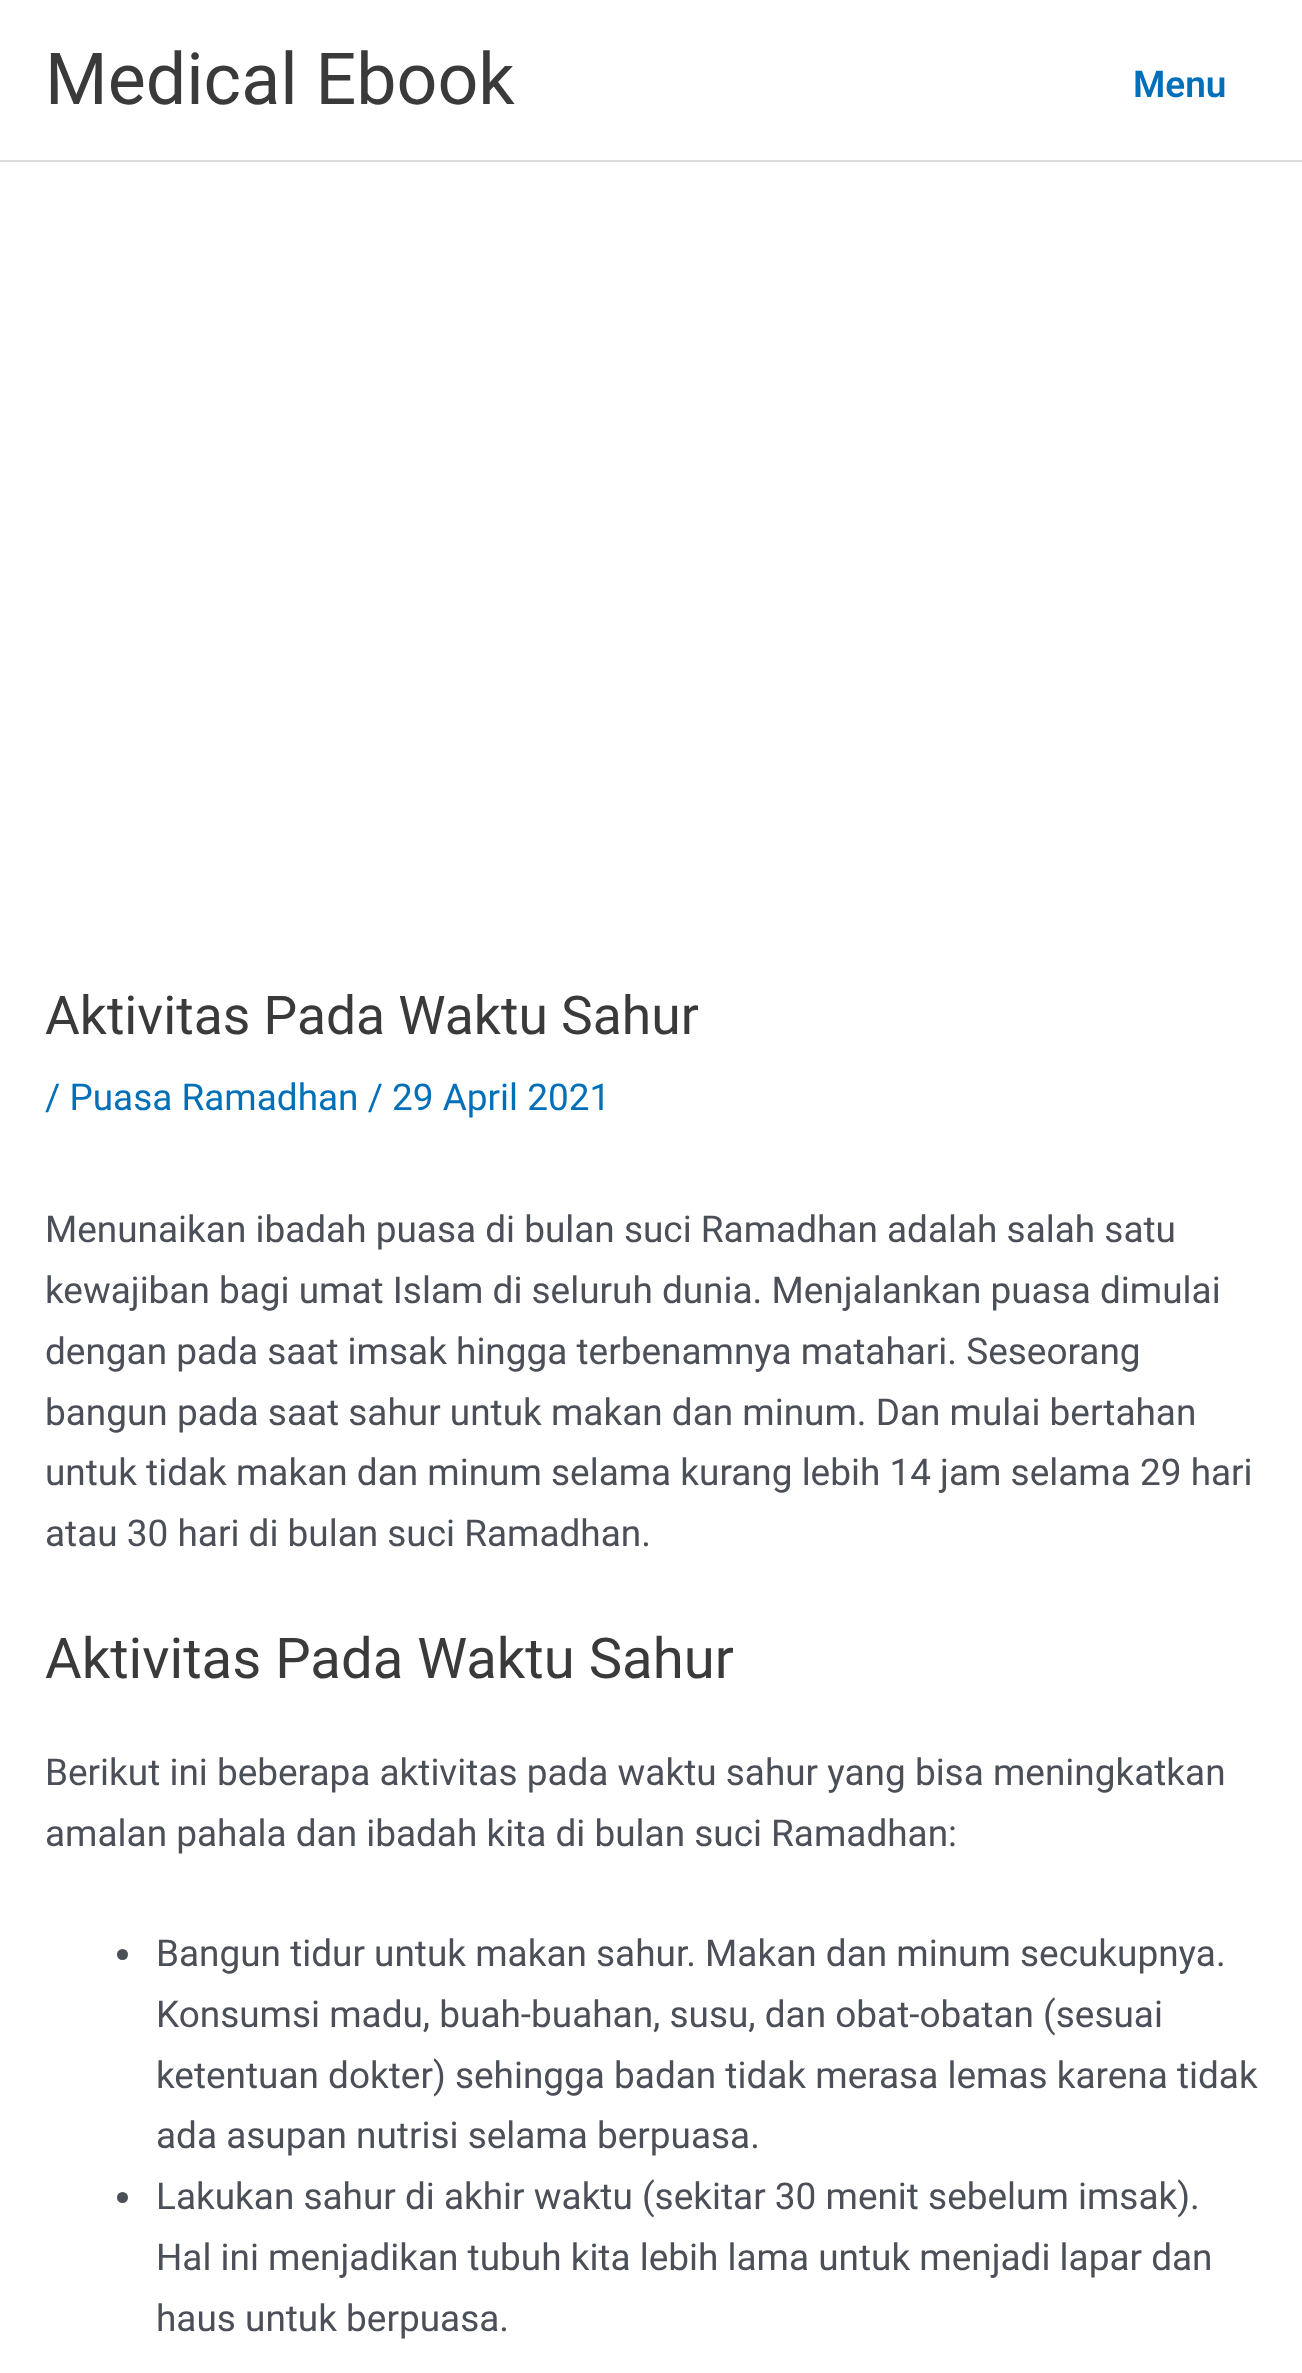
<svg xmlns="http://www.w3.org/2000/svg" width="1302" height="2373">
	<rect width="100%" height="100%" fill="#FFFFFF" />
	<rect x="0" y="160" width="1302" height="2" fill="#DDDDDD" />
	<text x="45" y="104" font-family="Roboto" font-size="71.75" fill="#3A3A3A">Medical Ebook</text>
	<text x="1133" y="97" font-family="Roboto" font-size="36.95" font-weight="600" fill="#0170B9">Menu</text>
	<text x="45" y="1034" font-family="Roboto" font-size="53.4" fill="#3A3A3A">Aktivitas Pada Waktu Sahur</text>
	<text x="45" y="1110" font-family="Roboto" font-size="36.95" fill="#0170B9">/ Puasa Ramadhan / 29 April 2021</text>
	<g font-family="Roboto" font-size="36.95" fill="#4B4F58">
		<text x="45" y="1242">Menunaikan ibadah puasa di bulan suci Ramadhan adalah salah satu</text>
		<text x="45" y="1303">kewajiban bagi umat Islam di seluruh dunia. Menjalankan puasa dimulai</text>
		<text x="45" y="1364">dengan pada saat imsak hingga terbenamnya matahari. Seseorang</text>
		<text x="45" y="1425">bangun pada saat sahur untuk makan dan minum. Dan mulai bertahan</text>
		<text x="45" y="1485">untuk tidak makan dan minum selama kurang lebih 14 jam selama 29 hari</text>
		<text x="45" y="1546">atau 30 hari di bulan suci Ramadhan.</text>
	</g>
	<text x="45" y="1678" font-family="Roboto" font-size="56.25" fill="#3A3A3A">Aktivitas Pada Waktu Sahur</text>
	<g font-family="Roboto" font-size="36.95" fill="#4B4F58">
		<text x="45" y="1785">Berikut ini beberapa aktivitas pada waktu sahur yang bisa meningkatkan</text>
		<text x="45" y="1846">amalan pahala dan ibadah kita di bulan suci Ramadhan:</text>
	</g>
	<circle cx="122.5" cy="1954.5" r="5.5" fill="#4B4F58" />
	<g font-family="Roboto" font-size="36.95" fill="#4B4F58">
		<text x="156" y="1966">Bangun tidur untuk makan sahur. Makan dan minum secukupnya.</text>
		<text x="156" y="2027">Konsumsi madu, buah-buahan, susu, dan obat-obatan (sesuai</text>
		<text x="156" y="2088">ketentuan dokter) sehingga badan tidak merasa lemas karena tidak</text>
		<text x="156" y="2148">ada asupan nutrisi selama berpuasa.</text>
	</g>
	<circle cx="122.5" cy="2197.5" r="5.5" fill="#4B4F58" />
	<g font-family="Roboto" font-size="36.95" fill="#4B4F58">
		<text x="156" y="2209">Lakukan sahur di akhir waktu (sekitar 30 menit sebelum imsak).</text>
		<text x="156" y="2270">Hal ini menjadikan tubuh kita lebih lama untuk menjadi lapar dan</text>
		<text x="156" y="2331">haus untuk berpuasa.</text>
	</g>
</svg>
